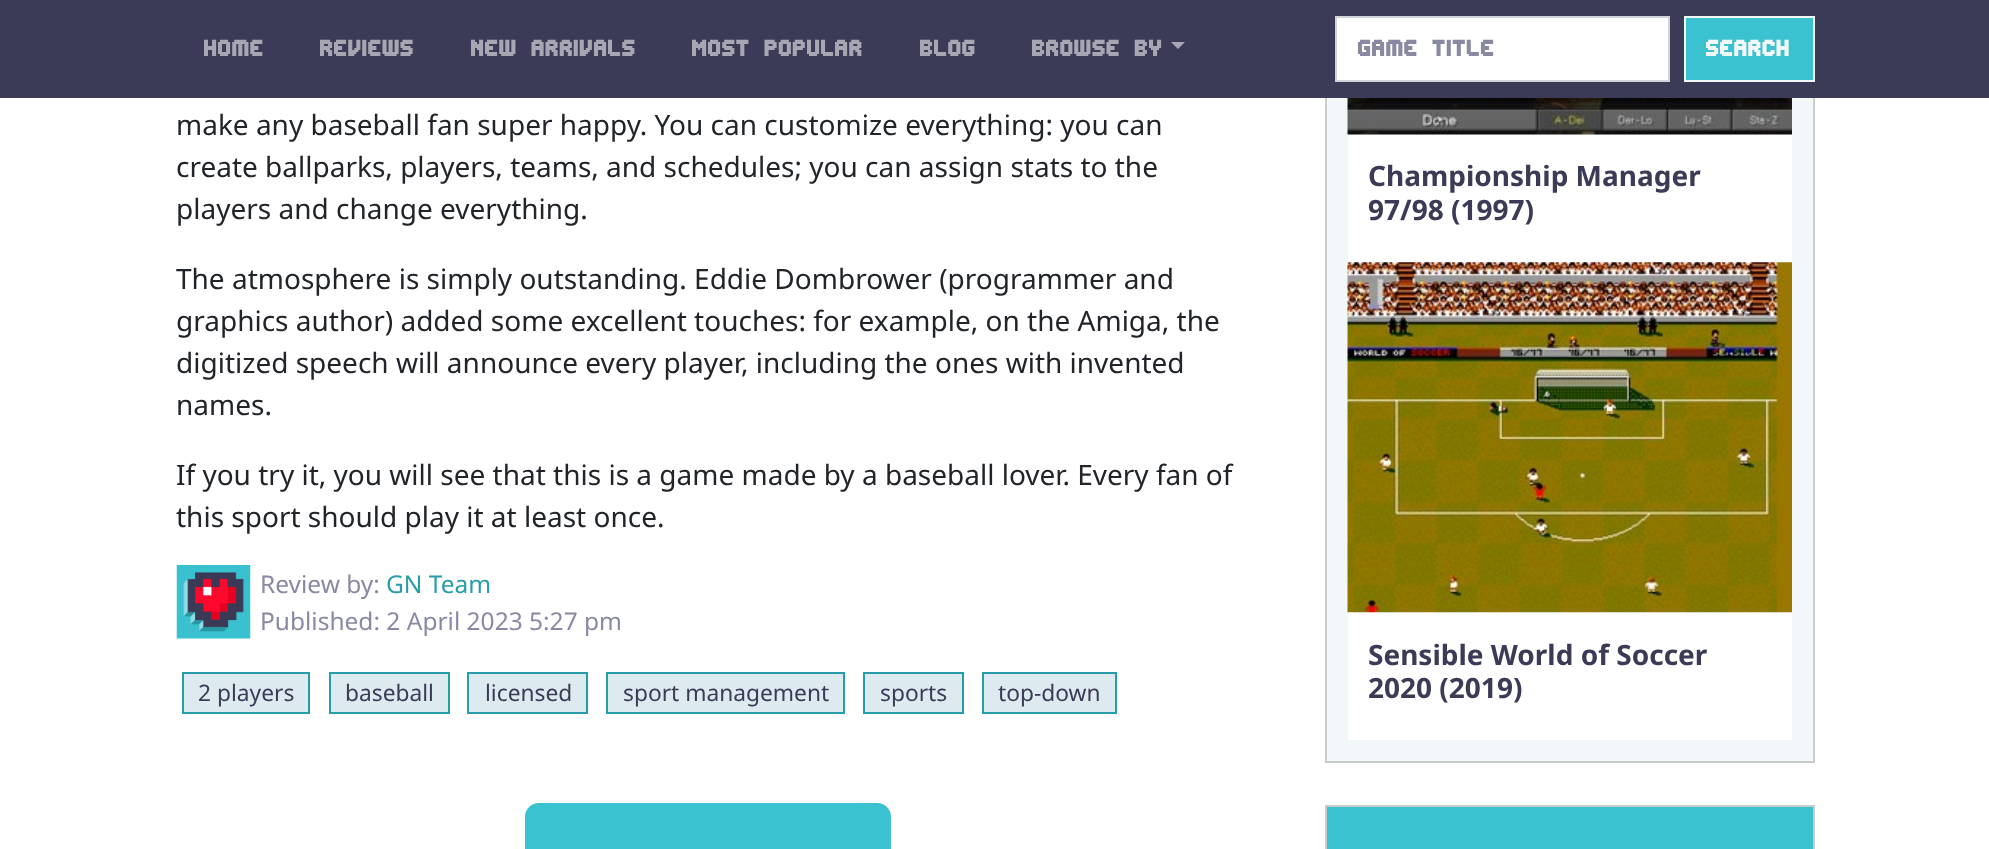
<svg xmlns="http://www.w3.org/2000/svg" width="1989" height="849">
	<rect width="100%" height="100%" fill="#FFFFFF" />
	<rect x="1327" y="98" width="486" height="663" fill="#F2F8F9" />
	<rect x="1326" y="-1" width="488" height="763" fill="none" stroke="#C7CCCD" stroke-width="2" />
	<rect x="0" y="0" width="1989" height="98" fill="#3B3B57" />
	<g font-family="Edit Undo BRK" font-size="28" fill="#A7A7B3">
		<text x="204" y="56">Home</text>
		<text x="320" y="56">Reviews</text>
		<text x="471" y="56">New Arrivals</text>
		<text x="692" y="56">Most Popular</text>
		<text x="920" y="56">Blog</text>
		<text x="1032" y="56">Browse By</text>
	</g>
	<path d="M1171 42H1185L1178 49Z" fill="#A7A7B3" />
	<rect x="1336" y="17" width="333" height="64" fill="#FFFFFF" stroke="#CED4DA" stroke-width="2" />
	<text x="1358" y="56" font-family="Edit Undo BRK" font-size="28" fill="#8989A3">Game Title</text>
	<rect x="1685" y="17" width="129" height="64" fill="#3AC2D0" stroke="#F2F8F9" stroke-width="2" />
	<text x="1706" y="56" font-family="Edit Undo BRK" font-size="28" fill="#F2F8F9">Search</text>
	<g font-family="Noto Sans" font-size="28" fill="#212529">
		<text x="176" y="135">make any baseball fan super happy. You can customize everything: you can</text>
		<text x="176" y="177">create ballparks, players, teams, and schedules; you can assign stats to the</text>
		<text x="176" y="219">players and change everything.</text>
		<text x="176" y="289">The atmosphere is simply outstanding. Eddie Dombrower (programmer and</text>
		<text x="176" y="331">graphics author) added some excellent touches: for example, on the Amiga, the</text>
		<text x="176" y="373">digitized speech will announce every player, including the ones with invented</text>
		<text x="176" y="415">names.</text>
		<text x="176" y="485">If you try it, you will see that this is a game made by a baseball lover. Every fan of</text>
		<text x="176" y="527">this sport should play it at least once.</text>
	</g>
	<image x="176" y="565" width="75" height="74" href="assets/img1.png" />
	<text x="260" y="593" font-family="Noto Sans" font-size="24.5" fill="#8989A3">Review by:</text>
	<text x="386" y="593" font-family="Noto Sans" font-size="24.5" fill="#289DAA">GN Team</text>
	<text x="260" y="630" font-family="Noto Sans" font-size="24.5" fill="#8989A3">Published: 2 April 2023 5:27 pm</text>
	<rect x="183" y="673" width="126" height="40" fill="#DDEAEF" stroke="#289DAA" stroke-width="2" />
	<text x="198" y="701" font-family="Noto Sans" font-size="22.75" fill="#3B3B57">2 players</text>
	<rect x="330" y="673" width="119" height="40" fill="#DDEAEF" stroke="#289DAA" stroke-width="2" />
	<text x="345" y="701" font-family="Noto Sans" font-size="22.75" fill="#3B3B57">baseball</text>
	<rect x="468" y="673" width="119" height="40" fill="#DDEAEF" stroke="#289DAA" stroke-width="2" />
	<text x="485" y="701" font-family="Noto Sans" font-size="22.75" fill="#3B3B57">licensed</text>
	<rect x="607" y="673" width="237" height="40" fill="#DDEAEF" stroke="#289DAA" stroke-width="2" />
	<text x="623" y="701" font-family="Noto Sans" font-size="22.75" fill="#3B3B57">sport management</text>
	<rect x="864" y="673" width="99" height="40" fill="#DDEAEF" stroke="#289DAA" stroke-width="2" />
	<text x="880" y="701" font-family="Noto Sans" font-size="22.75" fill="#3B3B57">sports</text>
	<rect x="983" y="673" width="133" height="40" fill="#DDEAEF" stroke="#289DAA" stroke-width="2" />
	<text x="998" y="701" font-family="Noto Sans" font-size="22.75" fill="#3B3B57">top-down</text>
	<rect x="526" y="804" width="364" height="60" rx="13" fill="#3AC2D0" stroke="#3AC2D0" stroke-width="2" />
	<rect x="1348" y="134" width="444" height="129" fill="#FFFFFF" />
	<image x="1347" y="98" width="445" height="37" href="assets/img2.png" />
	<g font-family="Noto Sans" font-size="28" font-weight="700" fill="#3B3B57">
		<text x="1368" y="186">Championship Manager</text>
		<text x="1368" y="220">97/98 (1997)</text>
	</g>
	<rect x="1348" y="612" width="444" height="128" fill="#FFFFFF" />
	<image x="1347" y="262" width="445" height="351" href="assets/img3.png" />
	<g font-family="Noto Sans" font-size="28" font-weight="700" fill="#3B3B57">
		<text x="1368" y="665">Sensible World of Soccer</text>
		<text x="1368" y="698">2020 (2019)</text>
	</g>
	<rect x="1326" y="806" width="488" height="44" fill="none" stroke="#C7CCCD" stroke-width="2" />
	<rect x="1327" y="807" width="486" height="42" fill="#3AC2D0" />
</svg>
